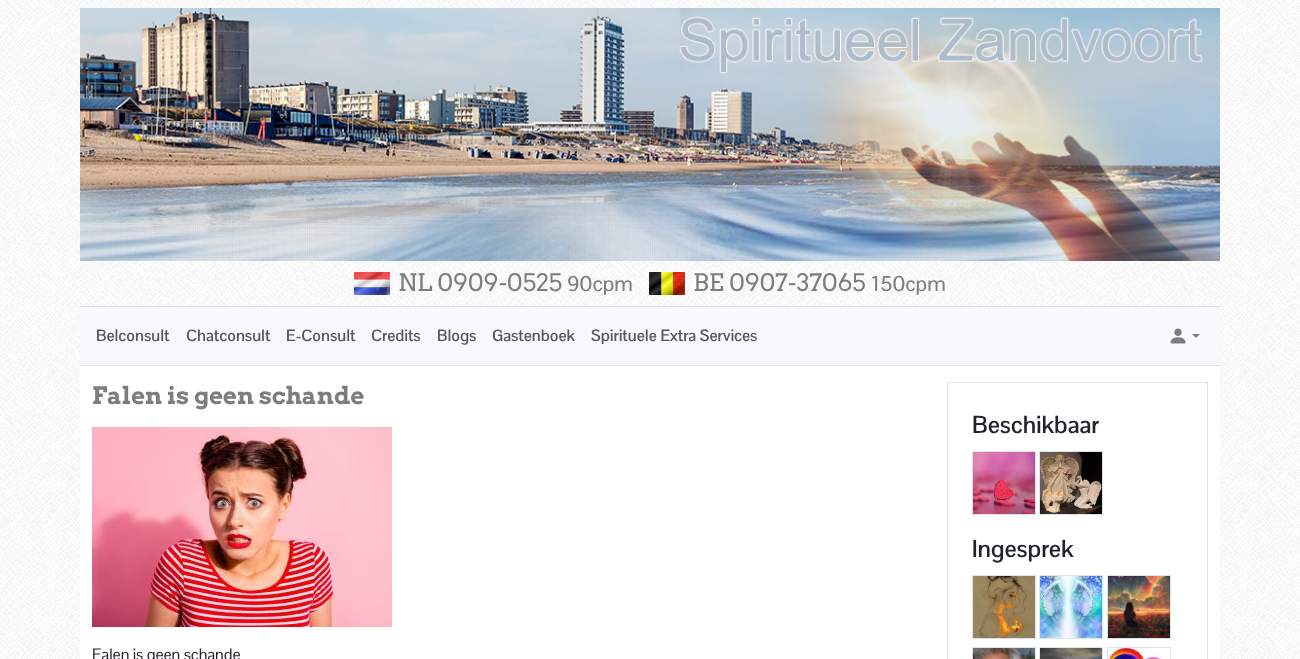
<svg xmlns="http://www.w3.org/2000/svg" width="1300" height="659">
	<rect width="100%" height="100%" fill="#FFFFFF" />
	<image x="0" y="0" width="1300" height="659" href="assets/img1.png" />
	<image x="80" y="8" width="1140" height="253" href="assets/img2.png" />
	<image x="354" y="272" width="36" height="23" href="assets/img3.png" />
	<text x="398" y="291" font-family="Arvo" font-size="24" fill="#7D7D7D">NL 0909-0525</text>
	<text x="567" y="291" font-family="Pontano Sans" font-size="21" font-weight="500" fill="#7D7D7D">90cpm</text>
	<image x="649" y="272" width="36" height="23" href="assets/img4.png" />
	<text x="693" y="291" font-family="Arvo" font-size="24" fill="#7D7D7D">BE 0907-37065</text>
	<text x="871" y="291" font-family="Pontano Sans" font-size="21" font-weight="500" fill="#7D7D7D">150cpm</text>
	<rect x="80" y="307" width="1140" height="58" fill="#F8F9FA" />
	<rect x="80" y="306" width="1140" height="1" fill="#DEE2E6" />
	<rect x="80" y="365" width="1140" height="1" fill="#DEE2E6" />
	<g font-family="Pontano Sans" font-size="16" font-weight="700" fill="#575758">
		<text x="96" y="341">Belconsult</text>
		<text x="186" y="341">Chatconsult</text>
		<text x="286" y="341">E-Consult</text>
		<text x="371" y="341">Credits</text>
		<text x="437" y="341">Blogs</text>
		<text x="492" y="341">Gastenboek</text>
		<text x="591" y="341">Spirituele Extra Services</text>
	</g>
	<image x="1170" y="328" width="16" height="16" href="assets/img5.png" />
	<path d="M1192 334H1200L1196 338Z" fill="#7C7D7D" />
	<rect x="80" y="366" width="1140" height="293" fill="#FFFFFF" />
	<text x="92" y="404" font-family="Arvo" font-size="24" font-weight="700" fill="#7D7D7D">Falen is geen schande</text>
	<image x="92" y="427" width="300" height="200" href="assets/img6.png" />
	<text x="92" y="660" font-family="Pontano Sans" font-size="16" fill="#212529">Falen is geen schande</text>
	<rect x="947.5" y="382.5" width="260" height="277" fill="none" stroke="#DEE2E6" />
	<text x="972" y="433" font-family="Pontano Sans" font-size="24" font-weight="700" fill="#212529">Beschikbaar</text>
	<rect x="972.5" y="451.5" width="63" height="63" fill="none" stroke="#DEE2E6" />
	<image x="973" y="452" width="62" height="62" href="assets/img7.png" />
	<rect x="1039.5" y="451.5" width="63" height="63" fill="none" stroke="#DEE2E6" />
	<image x="1040" y="452" width="62" height="62" href="assets/img8.png" />
	<text x="972" y="557" font-family="Pontano Sans" font-size="24" font-weight="700" fill="#212529">Ingesprek</text>
	<rect x="972.5" y="575.5" width="63" height="63" fill="none" stroke="#DEE2E6" />
	<image x="973" y="576" width="62" height="62" href="assets/img9.png" />
	<rect x="1039.5" y="575.5" width="63" height="63" fill="none" stroke="#DEE2E6" />
	<image x="1040" y="576" width="62" height="62" href="assets/img10.png" />
	<rect x="1107.5" y="575.5" width="63" height="63" fill="none" stroke="#DEE2E6" />
	<image x="1108" y="576" width="62" height="62" href="assets/img11.png" />
	<rect x="972.5" y="647.5" width="63" height="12" fill="none" stroke="#DEE2E6" />
	<image x="973" y="648" width="62" height="11" href="assets/img12.png" />
	<rect x="1039.5" y="647.5" width="63" height="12" fill="none" stroke="#DEE2E6" />
	<image x="1040" y="648" width="62" height="11" href="assets/img13.png" />
	<rect x="1107.5" y="647.5" width="63" height="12" fill="none" stroke="#DEE2E6" />
	<image x="1108" y="648" width="59" height="11" href="assets/img14.png" />
</svg>
